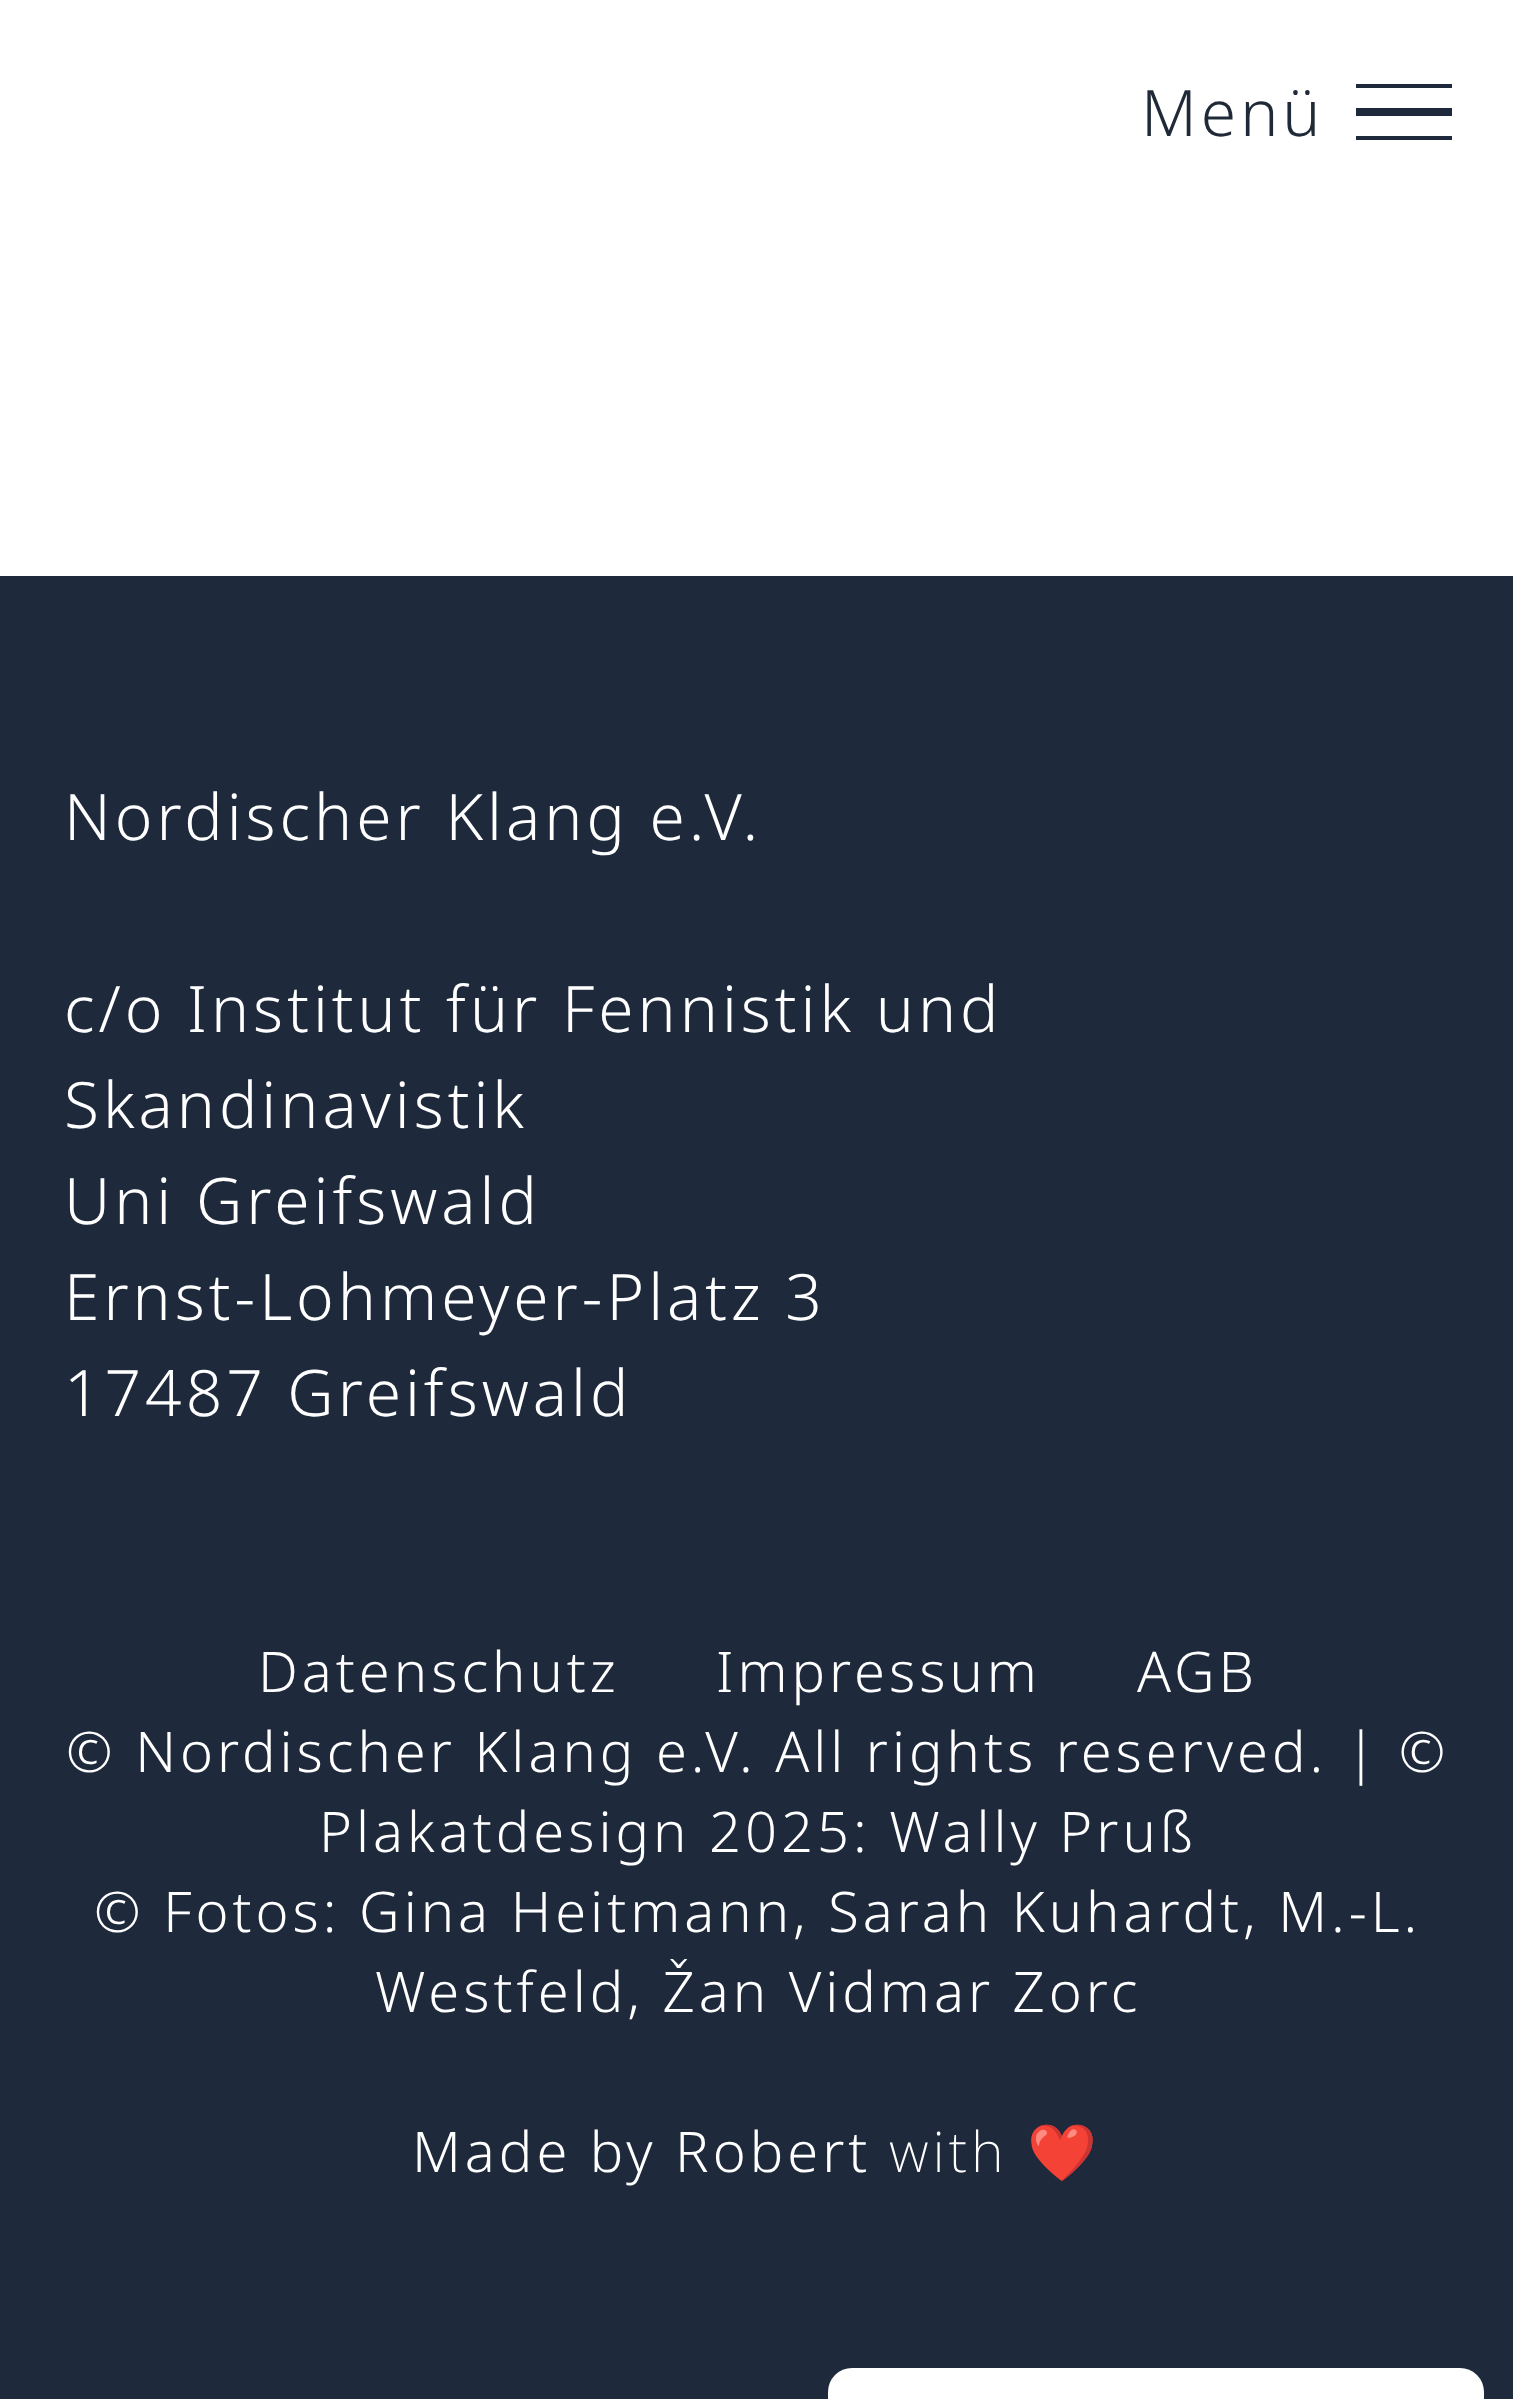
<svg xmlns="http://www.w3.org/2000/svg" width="1513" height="2399">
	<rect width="100%" height="100%" fill="#FFFFFF" />
	<text x="1141" y="136" font-family="Noto Sans" font-size="64" font-weight="300" letter-spacing="4" fill="#1F2937">Menü</text>
	<rect x="1356" y="84" width="96" height="4" fill="#1E293B" />
	<rect x="1356" y="108" width="96" height="8" fill="#1E293B" />
	<rect x="1356" y="136" width="96" height="4" fill="#1E293B" />
	<rect x="0" y="576" width="1513" height="1823" fill="#1E293B" />
	<g font-family="Noto Sans" font-size="64" font-weight="300" letter-spacing="4" fill="#FFFFFF">
		<text x="64" y="840">Nordischer Klang e.V.</text>
		<text x="64" y="1032">c/o Institut für Fennistik und</text>
		<text x="64" y="1128">Skandinavistik</text>
		<text x="64" y="1224">Uni Greifswald</text>
		<text x="64" y="1320">Ernst-Lohmeyer-Platz 3</text>
		<text x="64" y="1416">17487 Greifswald</text>
	</g>
	<g font-family="Noto Sans" font-size="56" font-weight="300" letter-spacing="4" fill="#FFFFFF">
		<text x="258" y="1692">Datenschutz</text>
		<text x="716" y="1692">Impressum</text>
		<text x="1137" y="1692">AGB</text>
		<text x="66" y="1772">© Nordischer Klang e.V. All rights reserved. | ©</text>
		<text x="319" y="1852">Plakatdesign 2025: Wally Pruß</text>
		<text x="94" y="1932">© Fotos: Gina Heitmann, Sarah Kuhardt, M.-L.</text>
		<text x="375" y="2012">Westfeld, Žan Vidmar Zorc</text>
		<text x="412" y="2172">Made by Robert</text>
	</g>
	<text x="889" y="2172" font-family="Noto Sans" font-size="56" font-weight="200" letter-spacing="4" fill="#FFFFFF">with</text>
	<text x="1027" y="2172" font-family="Noto Color Emoji" font-size="56" letter-spacing="4" fill="#FFFFFF">❤️</text>
	<rect x="828" y="2368" width="656" height="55" rx="24" fill="#FFFFFF" />
</svg>
